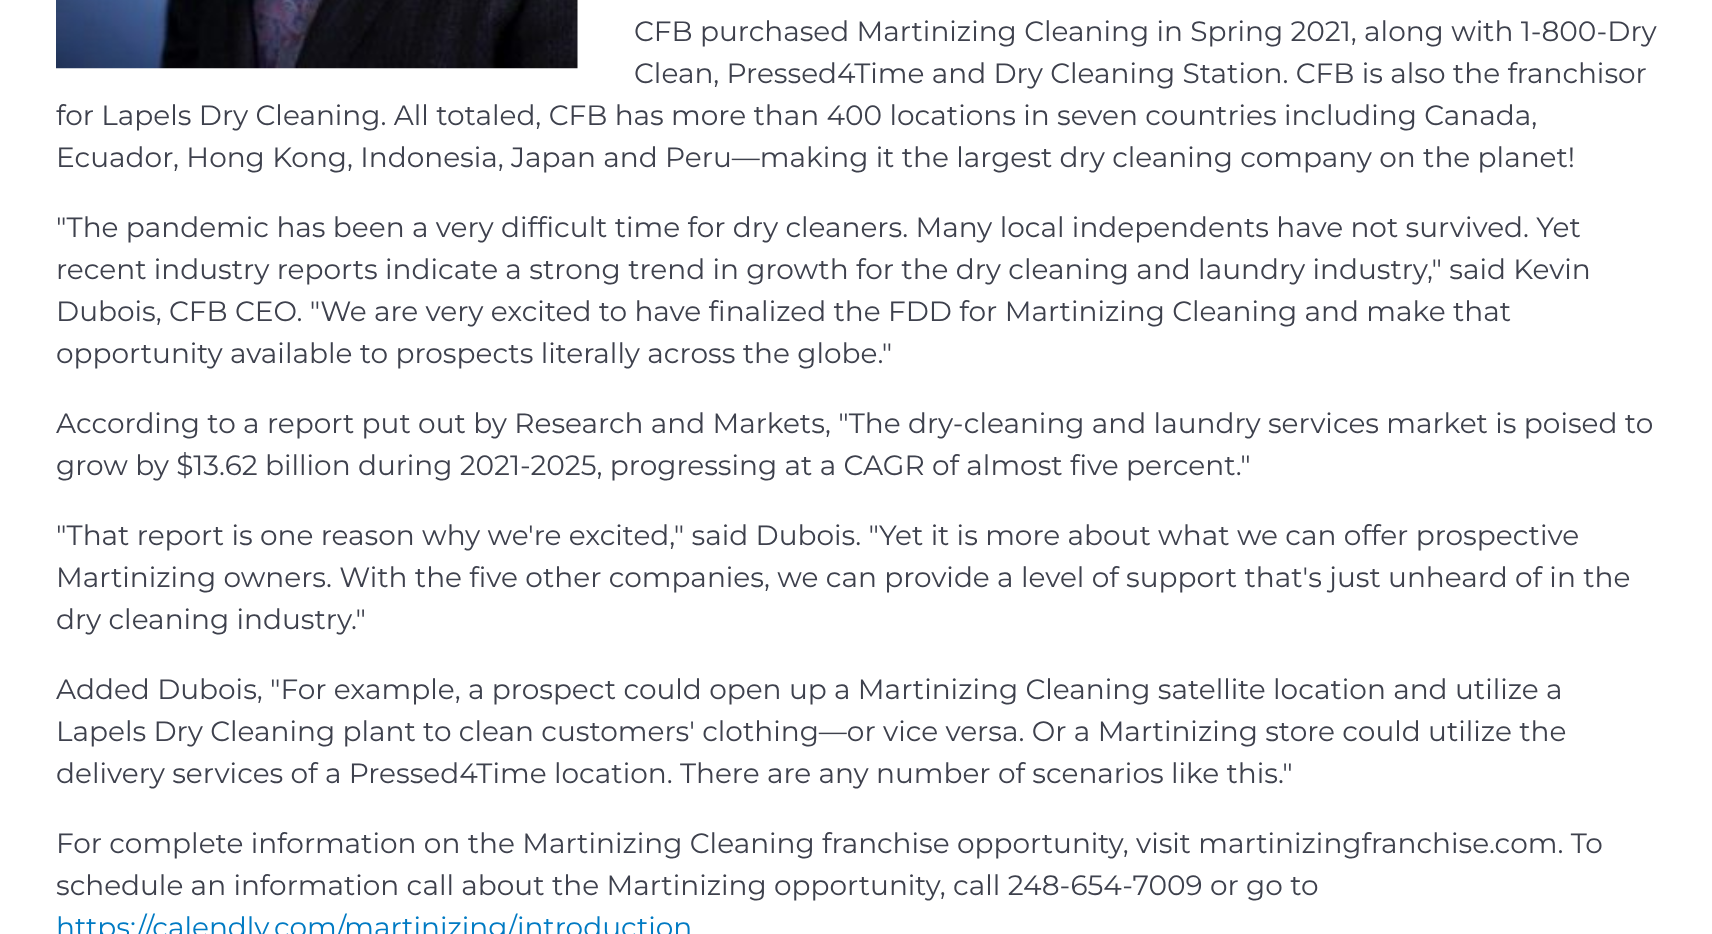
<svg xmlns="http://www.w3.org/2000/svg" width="1712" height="934">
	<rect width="100%" height="100%" fill="#FFFFFF" />
	<image x="56" y="0" width="522" height="69" href="assets/img1.png" />
	<g font-family="Montserrat" font-size="28" fill="#3E414D">
		<text x="634" y="41">CFB purchased Martinizing Cleaning in Spring 2021, along with 1-800-Dry</text>
		<text x="634" y="83">Clean, Pressed4Time and Dry Cleaning Station. CFB is also the franchisor</text>
		<text x="56" y="125">for Lapels Dry Cleaning. All totaled, CFB has more than 400 locations in seven countries including Canada,</text>
		<text x="56" y="167">Ecuador, Hong Kong, Indonesia, Japan and Peru—making it the largest dry cleaning company on the planet!</text>
		<text x="56" y="237">"The pandemic has been a very difficult time for dry cleaners. Many local independents have not survived. Yet</text>
		<text x="56" y="279">recent industry reports indicate a strong trend in growth for the dry cleaning and laundry industry," said Kevin</text>
		<text x="56" y="321">Dubois, CFB CEO. "We are very excited to have finalized the FDD for Martinizing Cleaning and make that</text>
		<text x="56" y="363">opportunity available to prospects literally across the globe."</text>
		<text x="56" y="433">According to a report put out by Research and Markets, "The dry-cleaning and laundry services market is poised to</text>
		<text x="56" y="475">grow by $13.62 billion during 2021-2025, progressing at a CAGR of almost five percent."</text>
		<text x="56" y="545">"That report is one reason why we're excited," said Dubois. "Yet it is more about what we can offer prospective</text>
		<text x="56" y="587">Martinizing owners. With the five other companies, we can provide a level of support that's just unheard of in the</text>
		<text x="56" y="629">dry cleaning industry."</text>
		<text x="56" y="699">Added Dubois, "For example, a prospect could open up a Martinizing Cleaning satellite location and utilize a</text>
		<text x="56" y="741">Lapels Dry Cleaning plant to clean customers' clothing—or vice versa. Or a Martinizing store could utilize the</text>
		<text x="56" y="783">delivery services of a Pressed4Time location. There are any number of scenarios like this."</text>
		<text x="56" y="853">For complete information on the Martinizing Cleaning franchise opportunity, visit martinizingfranchise.com. To</text>
		<text x="56" y="895">schedule an information call about the Martinizing opportunity, call 248-654-7009 or go to</text>
	</g>
	<text x="56" y="937" font-family="Montserrat" font-size="28" fill="#007AC3">https://calendly.com/martinizing/introduction</text>
</svg>
